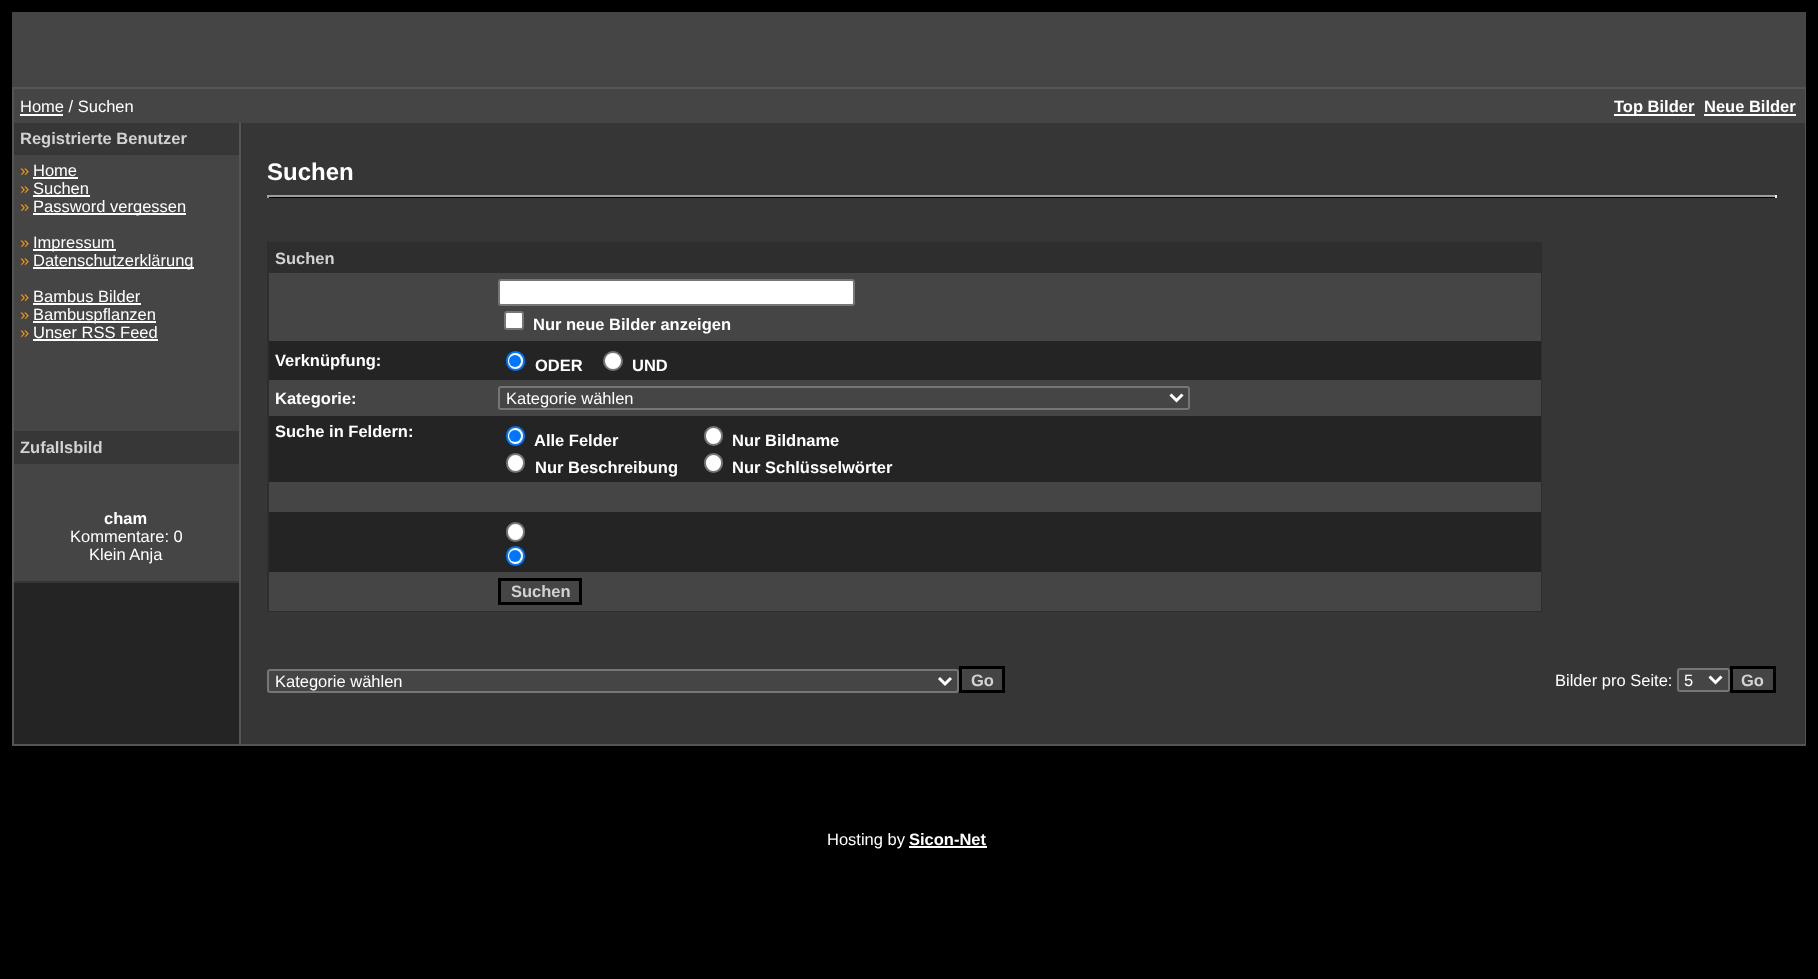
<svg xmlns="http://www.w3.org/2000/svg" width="1818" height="979">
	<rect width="100%" height="100%" fill="#000000" />
	<rect x="12" y="12" width="1794" height="75" fill="#454545" />
	<rect x="12" y="87" width="1794" height="659" fill="#555555" />
	<rect x="241" y="123" width="1564" height="621" fill="#363636" />
	<rect x="14" y="89" width="1791" height="34" fill="#454545" />
	<text x="20" y="112" font-family="Liberation Sans" font-size="16.5" fill="#FFFFFF">Home / Suchen</text>
	<rect x="20" y="114" width="43" height="2" fill="#FFFFFF" />
	<rect x="1614" y="114" width="81" height="2" fill="#FFFFFF" />
	<g font-family="Liberation Sans" font-size="16.5" font-weight="700" fill="#FFFFFF">
		<text x="1614" y="112">Top Bilder</text>
		<text x="1704" y="112">Neue Bilder</text>
	</g>
	<rect x="1704" y="114" width="92" height="2" fill="#FFFFFF" />
	<rect x="14" y="583" width="225" height="161" fill="#242424" />
	<rect x="14" y="123" width="225" height="30" fill="#373737" />
	<text x="20" y="144" font-family="Liberation Sans" font-size="16.5" font-weight="700" fill="#D2D2D2">Registrierte Benutzer</text>
	<rect x="14" y="153" width="225" height="2" fill="#363636" />
	<rect x="14" y="155" width="225" height="276" fill="#454545" />
	<text x="20" y="176" font-family="Liberation Sans" font-size="16.5" fill="#FE9900">»</text>
	<text x="33" y="176" font-family="Liberation Sans" font-size="16.5" fill="#FFFFFF">Home</text>
	<rect x="33" y="177" width="45" height="2" fill="#FFFFFF" />
	<text x="20" y="194" font-family="Liberation Sans" font-size="16.5" fill="#FE9900">»</text>
	<text x="33" y="194" font-family="Liberation Sans" font-size="16.5" fill="#FFFFFF">Suchen</text>
	<rect x="33" y="195" width="57" height="2" fill="#FFFFFF" />
	<text x="20" y="212" font-family="Liberation Sans" font-size="16.5" fill="#FE9900">»</text>
	<rect x="33" y="213" width="153" height="2" fill="#FFFFFF" />
	<text x="33" y="212" font-family="Liberation Sans" font-size="16.5" fill="#FFFFFF">Password vergessen</text>
	<text x="20" y="248" font-family="Liberation Sans" font-size="16.5" fill="#FE9900">»</text>
	<rect x="33" y="249" width="83" height="2" fill="#FFFFFF" />
	<text x="33" y="248" font-family="Liberation Sans" font-size="16.5" fill="#FFFFFF">Impressum</text>
	<text x="20" y="266" font-family="Liberation Sans" font-size="16.5" fill="#FE9900">»</text>
	<rect x="33" y="267" width="161" height="2" fill="#FFFFFF" />
	<text x="33" y="266" font-family="Liberation Sans" font-size="16.5" fill="#FFFFFF">Datenschutzerklärung</text>
	<text x="20" y="302" font-family="Liberation Sans" font-size="16.5" fill="#FE9900">»</text>
	<text x="33" y="302" font-family="Liberation Sans" font-size="16.5" fill="#FFFFFF">Bambus Bilder</text>
	<rect x="33" y="303" width="108" height="2" fill="#FFFFFF" />
	<text x="20" y="320" font-family="Liberation Sans" font-size="16.5" fill="#FE9900">»</text>
	<rect x="33" y="321" width="123" height="2" fill="#FFFFFF" />
	<text x="33" y="320" font-family="Liberation Sans" font-size="16.5" fill="#FFFFFF">Bambuspflanzen</text>
	<text x="20" y="338" font-family="Liberation Sans" font-size="16.5" fill="#FE9900">»</text>
	<text x="33" y="338" font-family="Liberation Sans" font-size="16.5" fill="#FFFFFF">Unser RSS Feed</text>
	<rect x="33" y="339" width="125" height="2" fill="#FFFFFF" />
	<rect x="14" y="431" width="225" height="1" fill="#363636" />
	<rect x="14" y="432" width="225" height="30" fill="#373737" />
	<text x="20" y="453" font-family="Liberation Sans" font-size="16.5" font-weight="700" fill="#D2D2D2">Zufallsbild</text>
	<rect x="14" y="462" width="225" height="2" fill="#363636" />
	<rect x="14" y="464" width="225" height="117" fill="#454545" />
	<text x="104" y="524" font-family="Liberation Sans" font-size="16.5" font-weight="700" fill="#FFFFFF">cham</text>
	<g font-family="Liberation Sans" font-size="16.5" fill="#FFFFFF">
		<text x="70" y="542">Kommentare: 0</text>
		<text x="89" y="560">Klein Anja</text>
	</g>
	<rect x="14" y="581" width="225" height="2" fill="#363636" />
	<text x="267" y="180" font-family="Liberation Sans" font-size="24" font-weight="700" fill="#FFFFFF">Suchen</text>
	<rect x="267" y="197" width="1509" height="1" fill="#000000" />
	<rect x="267" y="195" width="1509" height="2" fill="#9F9F9F" />
	<rect x="1775" y="195" width="2" height="3" fill="#EEEEEE" />
	<rect x="267" y="195" width="2" height="3" fill="#9F9F9F" />
	<rect x="267" y="242" width="1275" height="370" fill="#2E2E2E" />
	<text x="275" y="264" font-family="Liberation Sans" font-size="16.5" font-weight="700" fill="#D2D2D2">Suchen</text>
	<rect x="269" y="273" width="1272" height="68" fill="#454545" />
	<rect x="499" y="280" width="355" height="25" rx="2" fill="#FFFFFF" stroke="#767676" stroke-width="2" />
	<rect x="505" y="312" width="18" height="17" rx="2" fill="#FFFFFF" stroke="#767676" stroke-width="2" />
	<text x="533" y="330" font-family="Liberation Sans" font-size="16.5" font-weight="700" fill="#FFFFFF">Nur neue Bilder anzeigen</text>
	<rect x="269" y="341" width="1272" height="39" fill="#242424" />
	<text x="275" y="366" font-family="Liberation Sans" font-size="16.5" font-weight="700" fill="#FFFFFF">Verknüpfung:</text>
	<rect x="507" y="352" width="17" height="18" rx="8.5" fill="#FFFFFF" stroke="#0075FF" stroke-width="2" />
	<circle cx="515" cy="361" r="6" fill="#0075FF" />
	<text x="535" y="371" font-family="Liberation Sans" font-size="16.5" font-weight="700" fill="#FFFFFF">ODER</text>
	<circle cx="613" cy="361" r="9" fill="#FFFFFF" stroke="#767676" stroke-width="2" />
	<text x="632" y="371" font-family="Liberation Sans" font-size="16.5" font-weight="700" fill="#FFFFFF">UND</text>
	<rect x="269" y="380" width="1272" height="36" fill="#454545" />
	<text x="275" y="404" font-family="Liberation Sans" font-size="16.5" font-weight="700" fill="#FFFFFF">Kategorie:</text>
	<rect x="499" y="387" width="690" height="22" rx="2" fill="none" stroke="#767676" stroke-width="2" />
	<path d="M1170.5 394.5L1176.5 400.5L1182.5 394.5" fill="none" stroke="#FFFFFF" stroke-width="3" />
	<text x="506" y="404" font-family="Liberation Sans" font-size="16.5" fill="#FFFFFF">Kategorie wählen</text>
	<rect x="269" y="416" width="1272" height="66" fill="#242424" />
	<text x="275" y="437" font-family="Liberation Sans" font-size="16.5" font-weight="700" fill="#FFFFFF">Suche in Feldern:</text>
	<rect x="507" y="427" width="17" height="18" rx="8.5" fill="#FFFFFF" stroke="#0075FF" stroke-width="2" />
	<circle cx="515" cy="436" r="6" fill="#0075FF" />
	<text x="534" y="446" font-family="Liberation Sans" font-size="16.5" font-weight="700" fill="#FFFFFF">Alle Felder</text>
	<rect x="705" y="427" width="17" height="18" rx="8.5" fill="#FFFFFF" stroke="#767676" stroke-width="2" />
	<text x="732" y="446" font-family="Liberation Sans" font-size="16.5" font-weight="700" fill="#FFFFFF">Nur Bildname</text>
	<rect x="507" y="454" width="17" height="18" rx="8.5" fill="#FFFFFF" stroke="#767676" stroke-width="2" />
	<text x="535" y="473" font-family="Liberation Sans" font-size="16.5" font-weight="700" fill="#FFFFFF">Nur Beschreibung</text>
	<rect x="705" y="454" width="17" height="18" rx="8.5" fill="#FFFFFF" stroke="#767676" stroke-width="2" />
	<text x="732" y="473" font-family="Liberation Sans" font-size="16.5" font-weight="700" fill="#FFFFFF">Nur Schlüsselwörter</text>
	<rect x="269" y="482" width="1272" height="30" fill="#454545" />
	<rect x="269" y="512" width="1272" height="60" fill="#242424" />
	<rect x="507" y="523" width="17" height="18" rx="8.5" fill="#FFFFFF" stroke="#767676" stroke-width="2" />
	<rect x="507" y="547" width="17" height="18" rx="8.5" fill="#FFFFFF" stroke="#0075FF" stroke-width="2" />
	<circle cx="515" cy="556" r="6" fill="#0075FF" />
	<rect x="269" y="572" width="1272" height="39" fill="#454545" />
	<rect x="499.5" y="579.5" width="81" height="24" fill="none" stroke="#000000" stroke-width="3" />
	<text x="511" y="597" font-family="Liberation Sans" font-size="16.5" font-weight="700" fill="#D2D2D2">Suchen</text>
	<rect x="268" y="670" width="690" height="22" rx="2" fill="#454545" stroke="#767676" stroke-width="2" />
	<path d="M939 678L945 684L951 678" fill="none" stroke="#FFFFFF" stroke-width="3" />
	<text x="275" y="687" font-family="Liberation Sans" font-size="16.5" fill="#FFFFFF">Kategorie wählen</text>
	<rect x="960.5" y="667.5" width="43" height="24" fill="#454545" stroke="#000000" stroke-width="3" />
	<text x="971" y="686" font-family="Liberation Sans" font-size="16.5" font-weight="700" fill="#D2D2D2">Go</text>
	<text x="1555" y="686" font-family="Liberation Sans" font-size="16.5" fill="#FFFFFF">Bilder pro Seite:</text>
	<rect x="1678" y="669" width="51" height="22" rx="2" fill="#454545" stroke="#767676" stroke-width="2" />
	<path d="M1709.5 676.5L1715.5 682.5L1721.5 676.5" fill="none" stroke="#FFFFFF" stroke-width="3" />
	<text x="1684" y="686" font-family="Liberation Sans" font-size="16.5" fill="#FFFFFF">5</text>
	<rect x="1731.5" y="667.5" width="43" height="24" fill="#454545" stroke="#000000" stroke-width="3" />
	<text x="1741" y="686" font-family="Liberation Sans" font-size="16.5" font-weight="700" fill="#D2D2D2">Go</text>
	<text x="827" y="845" font-family="Liberation Sans" font-size="16.5" fill="#FFFFFF">Hosting by</text>
	<text x="909" y="845" font-family="Liberation Sans" font-size="16.5" font-weight="700" fill="#FFFFFF">Sicon-Net</text>
	<rect x="909" y="846" width="78" height="2" fill="#FFFFFF" />
</svg>
